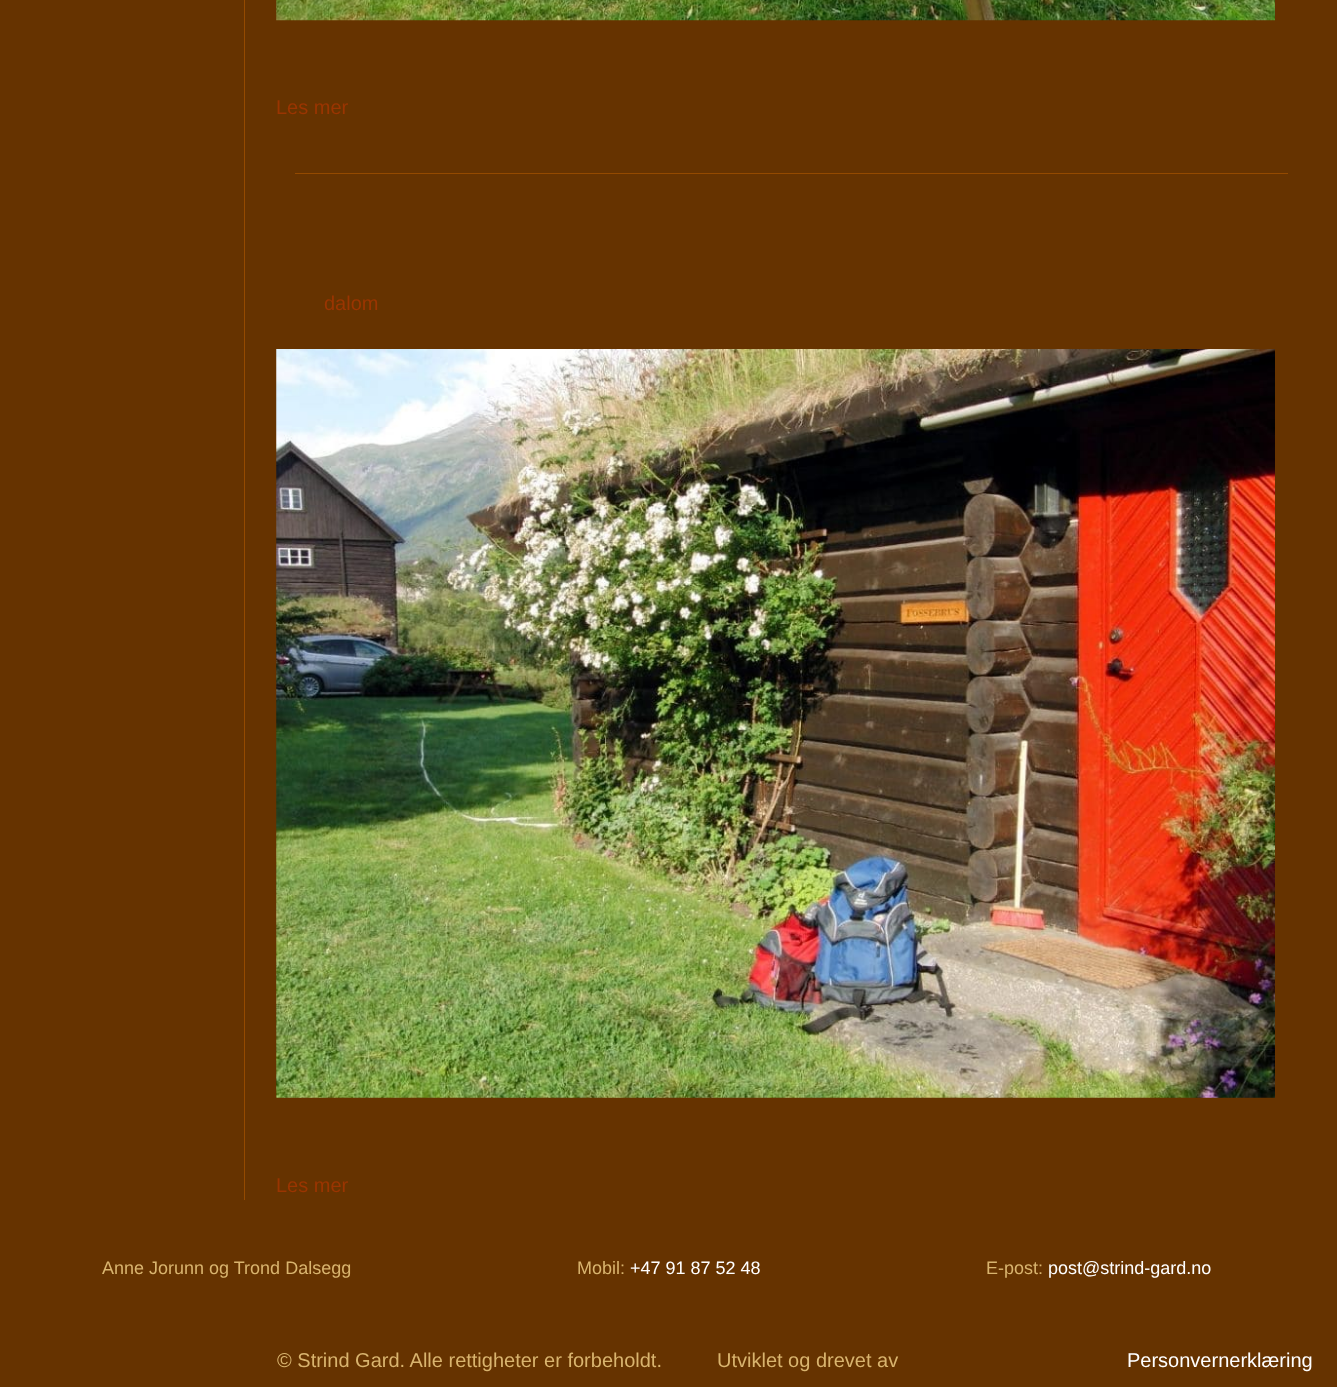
<svg xmlns="http://www.w3.org/2000/svg" width="1337" height="1387">
	<rect width="100%" height="100%" fill="#663300" />
	<rect x="244" y="0" width="1" height="1200" fill="#944A00" />
	<rect x="295" y="173" width="993" height="1" fill="#944A00" />
	<image x="276" y="0" width="999" height="21" href="assets/img1.png" />
	<g font-family="Liberation Sans" font-size="20" fill="#9A3501">
		<text x="276" y="114">Les mer</text>
		<text x="324" y="310">dalom</text>
	</g>
	<image x="276" y="349" width="999" height="749" href="assets/img2.png" />
	<text x="276" y="1192" font-family="Liberation Sans" font-size="20" fill="#9A3501">Les mer</text>
	<g font-family="Liberation Sans" font-size="18" fill="#D9B46E">
		<text x="102" y="1274">Anne Jorunn og Trond Dalsegg</text>
		<text x="577" y="1274">Mobil:</text>
	</g>
	<text x="630" y="1274" font-family="Liberation Sans" font-size="18" fill="#FFFFFF">+47 91 87 52 48</text>
	<text x="986" y="1274" font-family="Liberation Sans" font-size="18" fill="#D9B46E">E-post:</text>
	<text x="1048" y="1274" font-family="Liberation Sans" font-size="18" fill="#FFFFFF">post@strind-gard.no</text>
	<g font-family="Liberation Sans" font-size="20" fill="#D9B46E">
		<text x="277" y="1367">© Strind Gard. Alle rettigheter er forbeholdt.</text>
		<text x="717" y="1367">Utviklet og drevet av</text>
	</g>
	<text x="1127" y="1367" font-family="Liberation Sans" font-size="20" fill="#FFFFFF">Personvernerklæring</text>
</svg>
